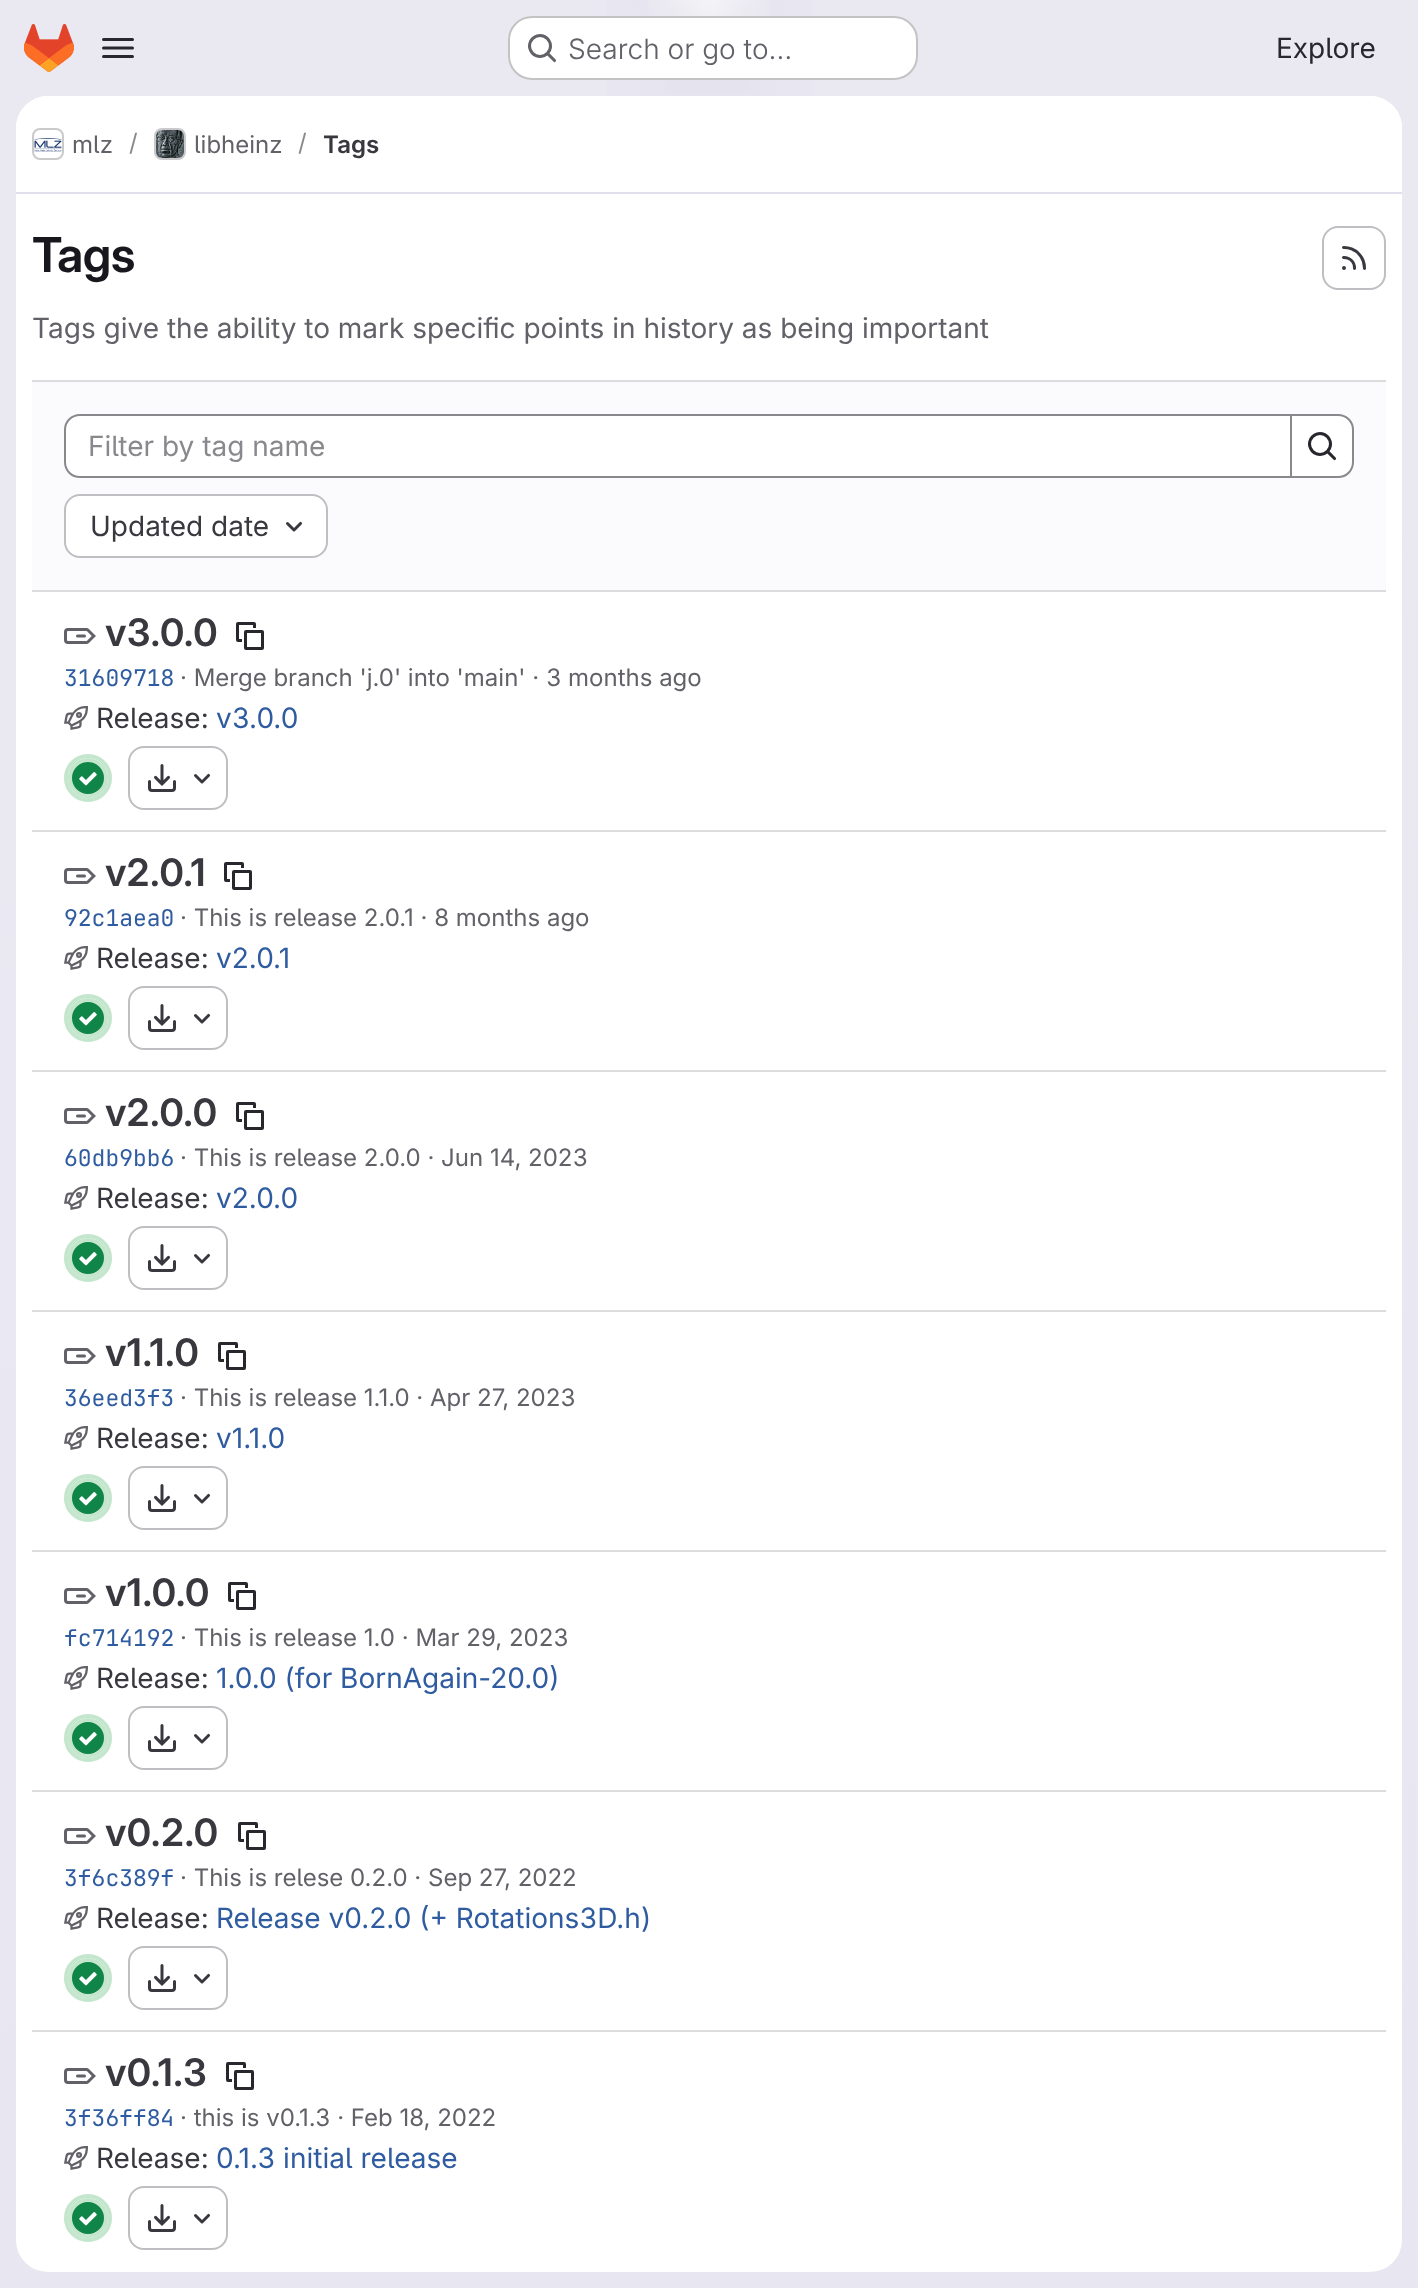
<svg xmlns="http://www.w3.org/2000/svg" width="1418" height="2288">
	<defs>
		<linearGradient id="g1" gradientUnits="userSpaceOnUse" x1="926" y1="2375" x2="492" y2="-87"><stop offset="0" stop-color="#E8E6F0" /><stop offset="0.7" stop-color="#EAE9F2" /></linearGradient>
		<radialGradient id="g2" gradientUnits="userSpaceOnUse" cx="0" cy="0" r="1" gradientTransform="matrix(709 0 0 2288 709 0)"><stop offset="0" stop-color="#E4E2ED" /><stop offset="0.2" stop-color="#E4E2ED" stop-opacity="0" /></radialGradient>
		<radialGradient id="g3" gradientUnits="userSpaceOnUse" cx="0" cy="0" r="1" gradientTransform="matrix(709 0 0 2288 709 0)"><stop offset="0" stop-color="#E4E2EC" /><stop offset="0.14" stop-color="#E4E2EC" stop-opacity="0" /></radialGradient>
		<radialGradient id="g4" gradientUnits="userSpaceOnUse" cx="709" cy="0" r="2395"><stop offset="0" stop-color="#FFFFFF" stop-opacity="0.6" /><stop offset="0.03" stop-color="#FFFFFF" stop-opacity="0" /></radialGradient>
	</defs>
	<rect width="100%" height="100%" fill="#FFFFFF" />
	<rect x="0" y="0" width="1418" height="2288" fill="url(#g1)" />
	<rect x="606" y="0" width="206" height="96" fill="url(#g2)" />
	<rect x="667" y="6" width="84" height="85" fill="url(#g3)" />
	<rect x="648" y="0" width="122" height="16" fill="url(#g4)" />
	<image x="24" y="24" width="50" height="48" href="assets/img1.png" />
	<image x="102" y="38" width="32" height="20" href="assets/img2.png" />
	<rect x="508" y="16" width="410" height="64" rx="24" fill="#FFFFFF" />
	<rect x="509" y="17" width="408" height="62" rx="23" fill="none" stroke="#050506" stroke-opacity="0.24" stroke-width="2" />
	<image x="528" y="34" width="29" height="29" href="assets/img3.png" />
	<text x="568" y="59" font-family="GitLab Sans" font-size="28" font-weight="300" fill="#626168">Search or go to…</text>
	<text x="1276" y="58" font-family="GitLab Sans" font-size="28" fill="#28272D">Explore</text>
	<rect x="16" y="96" width="1386" height="2176" rx="32" fill="#FFFFFF" />
	<path d="M48 96H1370C1387.5 96 1402 110.5 1402 128V194H16V128C16 110.5 30.5 96 48 96Z" fill="#FFFFFF" />
	<rect x="16" y="192" width="1386" height="2" fill="#E1DFEC" />
	<rect x="33" y="129" width="30" height="30" rx="7" fill="none" stroke="#DCDCDE" stroke-width="2" />
	<image x="34" y="138" width="28" height="14" href="assets/img4.png" />
	<rect x="33" y="129" width="30" height="30" rx="7" fill="none" stroke="#050506" stroke-opacity="0.08" stroke-width="2" />
	<text x="72" y="153" font-family="GitLab Sans" font-size="24" fill="#626168">mlz</text>
	<text x="129" y="151" font-family="GitLab Sans" font-size="24" fill="#89888D">/</text>
	<rect x="155" y="129" width="30" height="30" rx="7" fill="none" stroke="#DCDCDE" stroke-width="2" />
	<image x="156" y="130" width="28" height="28" href="assets/img5.png" />
	<rect x="155" y="129" width="30" height="30" rx="7" fill="none" stroke="#050506" stroke-opacity="0.08" stroke-width="2" />
	<text x="194" y="153" font-family="GitLab Sans" font-size="24" fill="#626168">libheinz</text>
	<text x="298" y="151" font-family="GitLab Sans" font-size="24" fill="#89888D">/</text>
	<text x="323" y="153" font-family="'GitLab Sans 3'" font-size="24" font-weight="600" fill="#3A383F">Tags</text>
	<text x="32" y="272" font-family="GitLab Sans" font-size="48" font-weight="600" letter-spacing="-0.5" fill="#18171D">Tags</text>
	<rect x="1323" y="227" width="62" height="62" rx="15" fill="none" stroke="#BFBFC3" stroke-width="2" />
	<image x="1342" y="246" width="24" height="24" href="assets/img6.png" />
	<text x="32" y="338" font-family="GitLab Sans" font-size="28" fill="#626168">Tags give the ability to mark specific points in history as being important</text>
	<rect x="32" y="382" width="1354" height="208" fill="#FBFAFD" />
	<rect x="32" y="380" width="1354" height="2" fill="#DCDCDE" />
	<rect x="32" y="590" width="1354" height="2" fill="#DCDCDE" />
	<path d="M80 415H1291V477H80C71.5 477 65 470.5 65 462V430C65 421.5 71.5 415 80 415Z" fill="#FFFFFF" stroke="#89888D" stroke-width="2" />
	<text x="88" y="456" font-family="GitLab Sans" font-size="28" fill="#89888D">Filter by tag name</text>
	<path d="M1291 415H1338C1346.5 415 1353 421.5 1353 430V462C1353 470.5 1346.5 477 1338 477H1291Z" fill="#FFFFFF" stroke="#89888D" stroke-width="2" />
	<image x="1308" y="432" width="29" height="29" href="assets/img7.png" />
	<rect x="65" y="495" width="262" height="62" rx="15" fill="#FFFFFF" stroke="#BFBFC3" stroke-width="2" />
	<text x="90" y="536" font-family="GitLab Sans" font-size="28" fill="#3A383F">Updated date</text>
	<image x="286" y="521" width="17" height="11" href="assets/img8.png" />
	<rect x="32" y="830" width="1354" height="2" fill="#DCDCDE" />
	<image x="64" y="628" width="32" height="16" href="assets/img9.png" />
	<text x="105" y="646" font-family="'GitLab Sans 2'" font-size="38" font-weight="600" fill="#3A383F">v3.0.0</text>
	<image x="236" y="622" width="28" height="28" href="assets/img10.png" />
	<text x="64" y="686" font-family="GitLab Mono" font-size="23" fill="#2F5CA0">31609718</text>
	<text x="180" y="686" font-family="GitLab Sans" font-size="24" fill="#626168">· Merge branch 'j.0' into 'main' · 3 months ago</text>
	<image x="64" y="706" width="24" height="24" href="assets/img11.png" />
	<text x="96" y="728" font-family="GitLab Sans" font-size="28" fill="#3A383F">Release:</text>
	<text x="216" y="728" font-family="GitLab Sans" font-size="28" fill="#2F5CA0">v3.0.0</text>
	<circle cx="88" cy="778" r="22" fill="none" stroke="#C3E6CD" stroke-width="4" />
	<circle cx="88" cy="778" r="18" fill="#108548" stroke="#C3E6CD" stroke-width="4" />
	<image x="79" y="772" width="18" height="14" href="assets/img12.png" />
	<rect x="129" y="747" width="98" height="62" rx="15" fill="none" stroke="#BFBFC3" stroke-width="2" />
	<image x="148" y="764" width="28" height="28" href="assets/img13.png" />
	<image x="194" y="773" width="17" height="11" href="assets/img8.png" />
	<rect x="32" y="1070" width="1354" height="2" fill="#DCDCDE" />
	<image x="64" y="868" width="32" height="16" href="assets/img9.png" />
	<text x="105" y="886" font-family="'GitLab Sans 2'" font-size="38" font-weight="600" fill="#3A383F">v2.0.1</text>
	<image x="224" y="862" width="28" height="28" href="assets/img10.png" />
	<text x="64" y="926" font-family="GitLab Mono" font-size="23" fill="#2F5CA0">92c1aea0</text>
	<text x="180" y="926" font-family="GitLab Sans" font-size="24" fill="#626168">· This is release 2.0.1 · 8 months ago</text>
	<image x="64" y="946" width="24" height="24" href="assets/img11.png" />
	<text x="96" y="968" font-family="GitLab Sans" font-size="28" fill="#3A383F">Release:</text>
	<text x="216" y="968" font-family="GitLab Sans" font-size="28" fill="#2F5CA0">v2.0.1</text>
	<circle cx="88" cy="1018" r="22" fill="none" stroke="#C3E6CD" stroke-width="4" />
	<circle cx="88" cy="1018" r="18" fill="#108548" stroke="#C3E6CD" stroke-width="4" />
	<image x="79" y="1012" width="18" height="14" href="assets/img14.png" />
	<rect x="129" y="987" width="98" height="62" rx="15" fill="none" stroke="#BFBFC3" stroke-width="2" />
	<image x="148" y="1004" width="28" height="28" href="assets/img15.png" />
	<image x="193" y="1013" width="18" height="11" href="assets/img16.png" />
	<rect x="32" y="1310" width="1354" height="2" fill="#DCDCDE" />
	<image x="64" y="1108" width="32" height="16" href="assets/img9.png" />
	<text x="105" y="1126" font-family="'GitLab Sans 2'" font-size="38" font-weight="600" fill="#3A383F">v2.0.0</text>
	<image x="236" y="1102" width="28" height="28" href="assets/img10.png" />
	<text x="64" y="1166" font-family="GitLab Mono" font-size="23" fill="#2F5CA0">60db9bb6</text>
	<text x="180" y="1166" font-family="GitLab Sans" font-size="24" fill="#626168">· This is release 2.0.0 · Jun 14, 2023</text>
	<image x="64" y="1186" width="24" height="24" href="assets/img11.png" />
	<text x="96" y="1208" font-family="GitLab Sans" font-size="28" fill="#3A383F">Release:</text>
	<text x="216" y="1208" font-family="GitLab Sans" font-size="28" fill="#2F5CA0">v2.0.0</text>
	<circle cx="88" cy="1258" r="22" fill="none" stroke="#C3E6CD" stroke-width="4" />
	<circle cx="88" cy="1258" r="18" fill="#108548" stroke="#C3E6CD" stroke-width="4" />
	<image x="79" y="1252" width="18" height="14" href="assets/img12.png" />
	<rect x="129" y="1227" width="98" height="62" rx="15" fill="none" stroke="#BFBFC3" stroke-width="2" />
	<image x="148" y="1244" width="28" height="28" href="assets/img17.png" />
	<image x="194" y="1253" width="17" height="11" href="assets/img8.png" />
	<rect x="32" y="1550" width="1354" height="2" fill="#DCDCDE" />
	<image x="64" y="1348" width="32" height="16" href="assets/img9.png" />
	<text x="105" y="1366" font-family="'GitLab Sans 2'" font-size="38" font-weight="600" fill="#3A383F">v1.1.0</text>
	<image x="218" y="1342" width="28" height="28" href="assets/img10.png" />
	<text x="64" y="1406" font-family="GitLab Mono" font-size="23" fill="#2F5CA0">36eed3f3</text>
	<text x="180" y="1406" font-family="GitLab Sans" font-size="24" fill="#626168">· This is release 1.1.0 · Apr 27, 2023</text>
	<image x="64" y="1426" width="24" height="24" href="assets/img11.png" />
	<text x="96" y="1448" font-family="GitLab Sans" font-size="28" fill="#3A383F">Release:</text>
	<text x="216" y="1448" font-family="GitLab Sans" font-size="28" fill="#2F5CA0">v1.1.0</text>
	<circle cx="88" cy="1498" r="22" fill="none" stroke="#C3E6CD" stroke-width="4" />
	<circle cx="88" cy="1498" r="18" fill="#108548" stroke="#C3E6CD" stroke-width="4" />
	<image x="79" y="1492" width="18" height="14" href="assets/img12.png" />
	<rect x="129" y="1467" width="98" height="62" rx="15" fill="none" stroke="#BFBFC3" stroke-width="2" />
	<image x="148" y="1484" width="28" height="28" href="assets/img13.png" />
	<image x="194" y="1493" width="17" height="11" href="assets/img8.png" />
	<rect x="32" y="1790" width="1354" height="2" fill="#DCDCDE" />
	<image x="64" y="1588" width="32" height="16" href="assets/img9.png" />
	<text x="105" y="1606" font-family="'GitLab Sans 2'" font-size="38" font-weight="600" fill="#3A383F">v1.0.0</text>
	<image x="228" y="1582" width="28" height="28" href="assets/img10.png" />
	<text x="64" y="1646" font-family="GitLab Mono" font-size="23" fill="#2F5CA0">fc714192</text>
	<text x="180" y="1646" font-family="GitLab Sans" font-size="24" fill="#626168">· This is release 1.0 · Mar 29, 2023</text>
	<image x="64" y="1666" width="24" height="24" href="assets/img11.png" />
	<text x="96" y="1688" font-family="GitLab Sans" font-size="28" fill="#3A383F">Release:</text>
	<text x="216" y="1688" font-family="GitLab Sans" font-size="28" fill="#2F5CA0">1.0.0 (for BornAgain-20.0)</text>
	<circle cx="88" cy="1738" r="22" fill="none" stroke="#C3E6CD" stroke-width="4" />
	<circle cx="88" cy="1738" r="18" fill="#108548" stroke="#C3E6CD" stroke-width="4" />
	<image x="79" y="1732" width="18" height="14" href="assets/img12.png" />
	<rect x="129" y="1707" width="98" height="62" rx="15" fill="none" stroke="#BFBFC3" stroke-width="2" />
	<image x="148" y="1724" width="28" height="28" href="assets/img13.png" />
	<image x="194" y="1733" width="17" height="11" href="assets/img8.png" />
	<rect x="32" y="2030" width="1354" height="2" fill="#DCDCDE" />
	<image x="64" y="1828" width="32" height="16" href="assets/img9.png" />
	<text x="105" y="1846" font-family="'GitLab Sans 2'" font-size="38" font-weight="600" fill="#3A383F">v0.2.0</text>
	<image x="238" y="1822" width="28" height="28" href="assets/img18.png" />
	<text x="64" y="1886" font-family="GitLab Mono" font-size="23" fill="#2F5CA0">3f6c389f</text>
	<text x="180" y="1886" font-family="GitLab Sans" font-size="24" fill="#626168">· This is relese 0.2.0 · Sep 27, 2022</text>
	<image x="64" y="1906" width="24" height="24" href="assets/img11.png" />
	<text x="96" y="1928" font-family="GitLab Sans" font-size="28" fill="#3A383F">Release:</text>
	<text x="216" y="1928" font-family="GitLab Sans" font-size="28" fill="#2F5CA0">Release v0.2.0 (+ Rotations3D.h)</text>
	<circle cx="88" cy="1978" r="22" fill="none" stroke="#C3E6CD" stroke-width="4" />
	<circle cx="88" cy="1978" r="18" fill="#108548" stroke="#C3E6CD" stroke-width="4" />
	<image x="79" y="1972" width="18" height="14" href="assets/img12.png" />
	<rect x="129" y="1947" width="98" height="62" rx="15" fill="none" stroke="#BFBFC3" stroke-width="2" />
	<image x="148" y="1964" width="28" height="28" href="assets/img13.png" />
	<image x="194" y="1973" width="17" height="11" href="assets/img8.png" />
	<image x="64" y="2068" width="32" height="16" href="assets/img19.png" />
	<text x="105" y="2086" font-family="'GitLab Sans 2'" font-size="38" font-weight="600" fill="#3A383F">v0.1.3</text>
	<image x="226" y="2062" width="28" height="28" href="assets/img20.png" />
	<text x="64" y="2126" font-family="GitLab Mono" font-size="23" fill="#2F5CA0">3f36ff84</text>
	<text x="180" y="2126" font-family="GitLab Sans" font-size="24" fill="#626168">· this is v0.1.3 · Feb 18, 2022</text>
	<image x="64" y="2146" width="24" height="24" href="assets/img21.png" />
	<text x="96" y="2168" font-family="GitLab Sans" font-size="28" fill="#3A383F">Release:</text>
	<text x="216" y="2168" font-family="GitLab Sans" font-size="28" fill="#2F5CA0">0.1.3 initial release</text>
	<circle cx="88" cy="2218" r="22" fill="none" stroke="#C3E6CD" stroke-width="4" />
	<circle cx="88" cy="2218" r="18" fill="#108548" stroke="#C3E6CD" stroke-width="4" />
	<image x="79" y="2212" width="18" height="14" href="assets/img22.png" />
	<rect x="129" y="2187" width="98" height="62" rx="15" fill="none" stroke="#BFBFC3" stroke-width="2" />
	<image x="148" y="2204" width="28" height="28" href="assets/img23.png" />
	<image x="194" y="2213" width="16" height="11" href="assets/img24.png" />
</svg>
